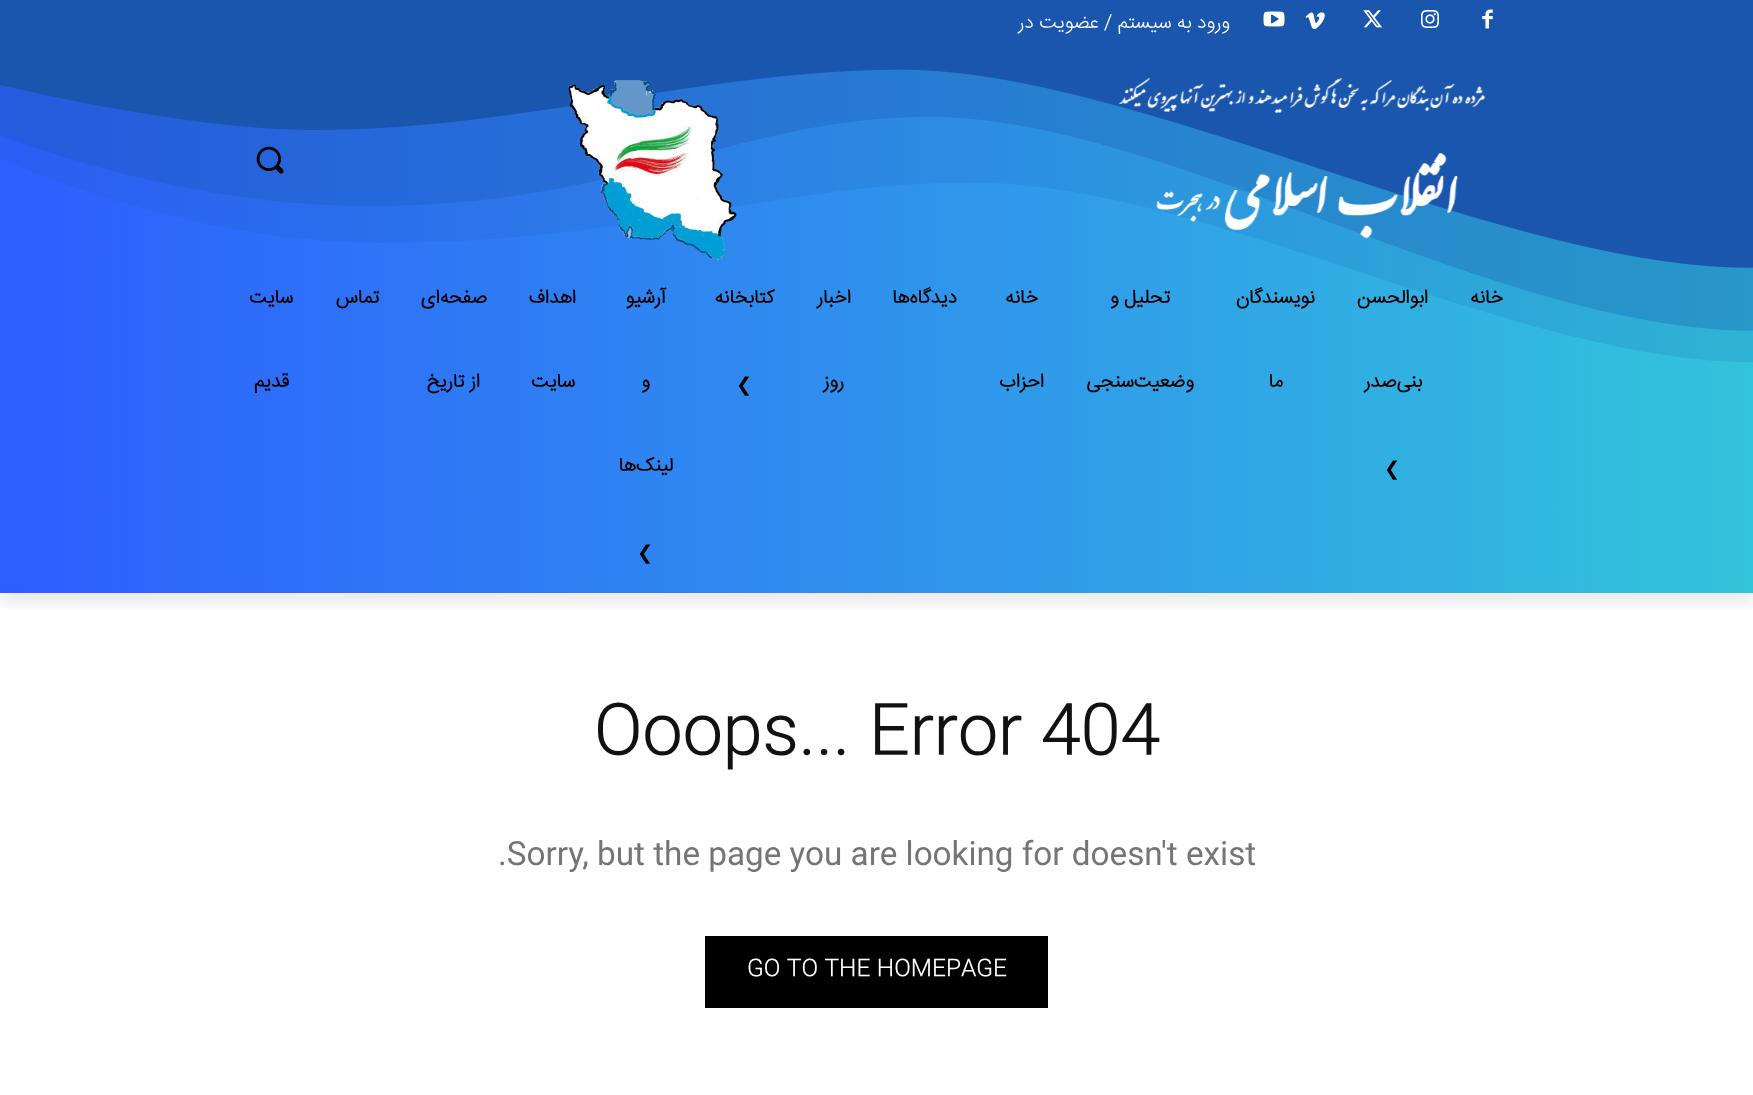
<svg xmlns="http://www.w3.org/2000/svg" width="1753" height="1095">
	<defs>
		<linearGradient id="g1" gradientUnits="userSpaceOnUse" x1="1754" y1="321" x2="0" y2="321"><stop offset="0" stop-color="#32C4DB" /><stop offset="1" stop-color="#2D5EFF" /></linearGradient>
		<clipPath id="clip1"><rect x="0" y="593" width="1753" height="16" /></clipPath>
	</defs>
	<rect width="100%" height="100%" fill="#FFFFFF" />
	<rect x="0" y="0" width="1753" height="49" fill="#1A56AE" />
	<image x="1482" y="9" width="11" height="20" href="assets/img1.png" />
	<image x="1421" y="10" width="18" height="18" href="assets/img2.png" />
	<image x="1363" y="10" width="19" height="18" href="assets/img3.png" />
	<image x="1305" y="12" width="20" height="18" href="assets/img4.png" />
	<image x="1263" y="11" width="22" height="16" href="assets/img5.png" />
	<rect x="0" y="69" width="1753" height="524" fill="url(#g1)" />
	<image x="0" y="49" width="1753" height="314" href="assets/img6.png" />
	<image x="1119" y="78" width="367" height="161" href="assets/img7.png" />
	<image x="568" y="80" width="169" height="180" href="assets/img8.png" />
	<g clip-path="url(#clip1)">
		<rect x="0" y="11" width="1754" height="593" fill="#000000" fill-opacity="0.08" filter="blur(7px)" />
	</g>
	<text x="1230" y="28" font-family="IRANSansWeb" font-size="19.25" font-weight="300" direction="rtl" fill="#FFFFFF">ورود به سیستم / عضویت در</text>
	<image x="256" y="146" width="28" height="28" href="assets/img9.png" />
	<g font-family="IRANSansWeb" font-size="19.25" font-weight="700" direction="rtl" fill="#000000">
		<text x="1503" y="303">خانه</text>
		<text x="1428" y="303">ابوالحسن</text>
		<text x="1422" y="387">بنی‌صدر</text>
	</g>
	<text x="1384" y="475" font-family="DejaVu Sans" font-size="19.25" fill="#000000">❮</text>
	<g font-family="IRANSansWeb" font-size="19.25" font-weight="700" direction="rtl" fill="#000000">
		<text x="1315" y="303">نویسندگان</text>
		<text x="1283" y="387">ما</text>
		<text x="1170" y="303">تحلیل و</text>
		<text x="1194" y="387">وضعیت‌سنجی</text>
		<text x="1038" y="303">خانه</text>
		<text x="1044" y="387">احزاب</text>
		<text x="957" y="303">دیدگاه‌ها</text>
		<text x="851" y="303">اخبار</text>
		<text x="844" y="387">روز</text>
		<text x="774" y="303">کتابخانه</text>
	</g>
	<text x="736" y="391" font-family="DejaVu Sans" font-size="19.25" fill="#000000">❮</text>
	<g font-family="IRANSansWeb" font-size="19.25" font-weight="700" direction="rtl" fill="#000000">
		<text x="666" y="303">آرشیو</text>
		<text x="650" y="387">و</text>
		<text x="673" y="471">لینک‌ها</text>
	</g>
	<text x="637" y="559" font-family="DejaVu Sans" font-size="19.25" fill="#000000">❮</text>
	<g font-family="IRANSansWeb" font-size="19.25" font-weight="700" direction="rtl" fill="#000000">
		<text x="576" y="303">اهداف</text>
		<text x="575" y="387">سایت</text>
		<text x="487" y="303">صفحه‌ای</text>
		<text x="480" y="387">از تاریخ</text>
		<text x="379" y="303">تماس</text>
		<text x="293" y="303">سایت</text>
		<text x="289" y="387">قدیم</text>
	</g>
	<text x="594" y="751" font-family="IRANSansWeb" font-size="66.5" font-weight="300" fill="#111111">Ooops... Error 404</text>
	<text x="498" y="865" font-family="Roboto" font-size="33.25" fill="#757575">.Sorry, but the page you are looking for doesn't exist</text>
	<rect x="705" y="936" width="343" height="72" fill="#000000" />
	<text x="747" y="975" font-family="IRANSansWeb" font-size="22.75" font-weight="300" fill="#FFFFFF">GO TO THE HOMEPAGE</text>
</svg>
